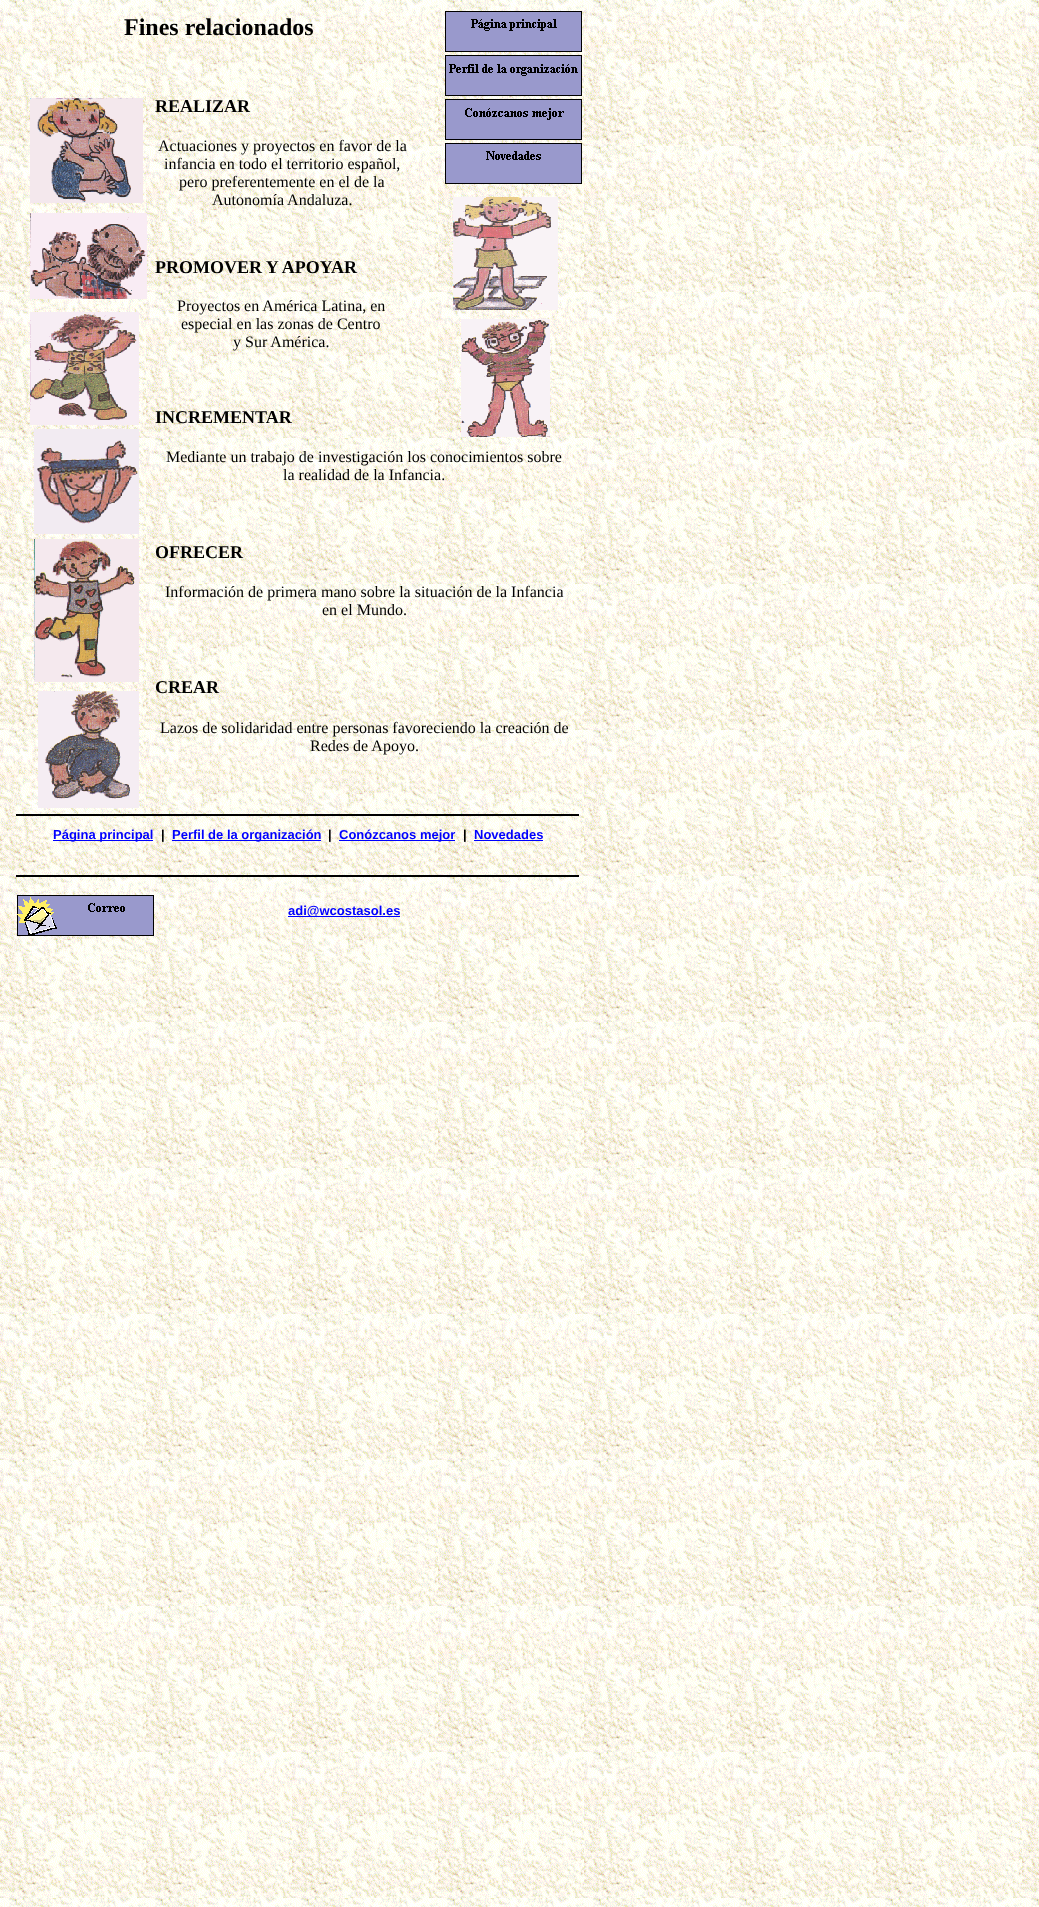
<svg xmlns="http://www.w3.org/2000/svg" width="1039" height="1907">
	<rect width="100%" height="100%" fill="#FFFFFF" />
	<image x="0" y="0" width="1039" height="1907" href="assets/img1.png" />
	<text x="124" y="35" font-family="Liberation Serif" font-size="24" font-weight="700" fill="#000000">Fines relacionados</text>
	<image x="445" y="11" width="137" height="173" href="assets/img2.png" />
	<image x="30" y="98" width="113" height="105" href="assets/img3.png" />
	<text x="155" y="112" font-family="Liberation Serif" font-size="18" font-weight="700" fill="#000000">REALIZAR</text>
	<g font-family="Liberation Serif" font-size="16" fill="#000000">
		<text x="158" y="151">Actuaciones y proyectos en favor de la</text>
		<text x="164" y="169">infancia en todo el territorio español,</text>
		<text x="179" y="187">pero preferentemente en el de la</text>
		<text x="212" y="205">Autonomía Andaluza.</text>
	</g>
	<image x="30" y="213" width="117" height="86" href="assets/img4.png" />
	<text x="155" y="273" font-family="Liberation Serif" font-size="18" font-weight="700" fill="#000000">PROMOVER Y APOYAR</text>
	<image x="453" y="197" width="105" height="113" href="assets/img5.png" />
	<image x="30" y="312" width="109" height="113" href="assets/img6.png" />
	<g font-family="Liberation Serif" font-size="16" fill="#000000">
		<text x="177" y="311">Proyectos en América Latina, en</text>
		<text x="181" y="329">especial en las zonas de Centro</text>
		<text x="233" y="347">y Sur América.</text>
	</g>
	<image x="461" y="319" width="89" height="118" href="assets/img7.png" />
	<text x="155" y="423" font-family="Liberation Serif" font-size="18" font-weight="700" fill="#000000">INCREMENTAR</text>
	<image x="34" y="429" width="105" height="105" href="assets/img8.png" />
	<g font-family="Liberation Serif" font-size="16" fill="#000000">
		<text x="166" y="462">Mediante un trabajo de investigación los conocimientos sobre</text>
		<text x="283" y="480">la realidad de la Infancia.</text>
	</g>
	<image x="34" y="539" width="105" height="143" href="assets/img9.png" />
	<text x="155" y="558" font-family="Liberation Serif" font-size="18" font-weight="700" fill="#000000">OFRECER</text>
	<g font-family="Liberation Serif" font-size="16" fill="#000000">
		<text x="165" y="597">Información de primera mano sobre la situación de la Infancia</text>
		<text x="322" y="615">en el Mundo.</text>
	</g>
	<text x="155" y="693" font-family="Liberation Serif" font-size="18" font-weight="700" fill="#000000">CREAR</text>
	<image x="38" y="691" width="101" height="117" href="assets/img10.png" />
	<g font-family="Liberation Serif" font-size="16" fill="#000000">
		<text x="160" y="733">Lazos de solidaridad entre personas favoreciendo la creación de</text>
		<text x="310" y="751">Redes de Apoyo.</text>
	</g>
	<rect x="16" y="814" width="563" height="2" fill="#000000" />
	<rect x="53" y="840" width="100" height="1" fill="#0000FF" />
	<text x="53" y="839" font-family="Liberation Sans" font-size="13" font-weight="700" fill="#0000FF">Página principal</text>
	<text x="161" y="839" font-family="Liberation Sans" font-size="13" font-weight="700" fill="#000000">|</text>
	<rect x="172" y="840" width="149" height="1" fill="#0000FF" />
	<text x="172" y="839" font-family="Liberation Sans" font-size="13" font-weight="700" fill="#0000FF">Perfil de la organización</text>
	<text x="328" y="839" font-family="Liberation Sans" font-size="13" font-weight="700" fill="#000000">|</text>
	<rect x="339" y="840" width="116" height="1" fill="#0000FF" />
	<text x="339" y="839" font-family="Liberation Sans" font-size="13" font-weight="700" fill="#0000FF">Conózcanos mejor</text>
	<text x="463" y="839" font-family="Liberation Sans" font-size="13" font-weight="700" fill="#000000">|</text>
	<text x="474" y="839" font-family="Liberation Sans" font-size="13" font-weight="700" fill="#0000FF">Novedades</text>
	<rect x="474" y="840" width="69" height="1" fill="#0000FF" />
	<rect x="16" y="875" width="563" height="2" fill="#000000" />
	<image x="17" y="895" width="137" height="41" href="assets/img11.png" />
	<rect x="288" y="916" width="112" height="1" fill="#0000FF" />
	<text x="288" y="915" font-family="Liberation Sans" font-size="13" font-weight="700" fill="#0000FF">adi@wcostasol.es</text>
</svg>
